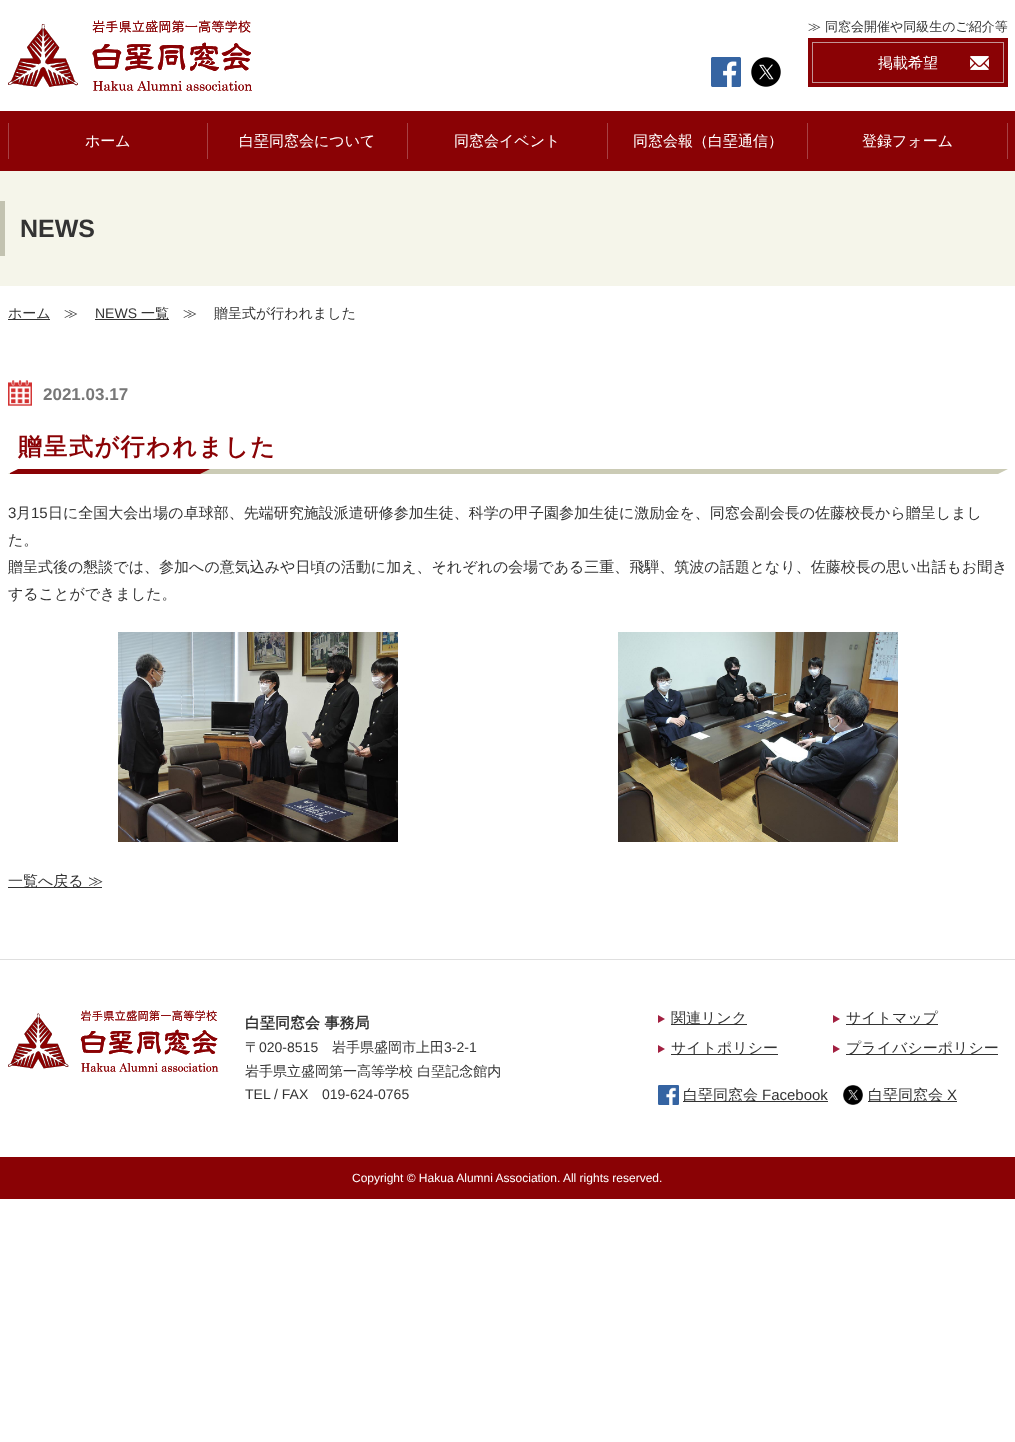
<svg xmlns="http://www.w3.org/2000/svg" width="1015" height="1442">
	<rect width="100%" height="100%" fill="#FFFFFF" />
	<image x="8" y="20" width="244" height="71" href="assets/img1.png" />
	<image x="711" y="57" width="30" height="30" href="assets/img2.png" />
	<image x="751" y="57" width="30" height="30" href="assets/img3.png" />
	<text x="808" y="31" font-family="WenQuanYi Zen Hei" font-size="13" font-weight="500" fill="#333333">≫ 同窓会開催や同級生のご紹介等</text>
	<rect x="808" y="38" width="200" height="49" fill="#8A0205" />
	<image x="970" y="56" width="19" height="14" href="assets/img4.png" />
	<rect x="812.5" y="42.5" width="191" height="40" fill="none" stroke="#C39495" />
	<text x="878" y="68" font-family="WenQuanYi Zen Hei" font-size="15" font-weight="500" fill="#FFFFFF">掲載希望</text>
	<rect x="0" y="111" width="1015" height="60" fill="#8A0205" />
	<rect x="8" y="123" width="1" height="36" fill="#A74144" />
	<text x="85" y="146" font-family="WenQuanYi Zen Hei" font-size="15" font-weight="500" fill="#FFFFFF">ホーム</text>
	<rect x="207" y="123" width="1" height="36" fill="#A74144" />
	<text x="239" y="146" font-family="WenQuanYi Zen Hei" font-size="15" font-weight="500" fill="#FFFFFF">白堊同窓会について</text>
	<rect x="407" y="123" width="1" height="36" fill="#A74144" />
	<text x="454" y="146" font-family="WenQuanYi Zen Hei" font-size="15" font-weight="500" fill="#FFFFFF">同窓会イベント</text>
	<rect x="607" y="123" width="1" height="36" fill="#A74144" />
	<text x="633" y="146" font-family="WenQuanYi Zen Hei" font-size="15" font-weight="500" fill="#FFFFFF">同窓会報（白堊通信）</text>
	<rect x="807" y="123" width="1" height="36" fill="#A74144" />
	<text x="862" y="146" font-family="WenQuanYi Zen Hei" font-size="15" font-weight="500" fill="#FFFFFF">登録フォーム</text>
	<rect x="1007" y="123" width="1" height="36" fill="#A74144" />
	<rect x="0" y="171" width="1015" height="115" fill="#F5F5EA" />
	<rect x="0" y="201" width="5" height="55" fill="#C2C2B0" />
	<text x="20" y="237" font-family="Liberation Sans" font-size="25" font-weight="700" fill="#333333">NEWS</text>
	<rect x="8" y="319" width="42" height="1" fill="#333333" />
	<g font-family="WenQuanYi Zen Hei" font-size="14" font-weight="500" fill="#333333">
		<text x="8" y="318">ホーム</text>
		<text x="64" y="318">≫</text>
	</g>
	<text x="95" y="318" font-family="Liberation Sans" font-size="14" fill="#333333">NEWS</text>
	<rect x="95" y="319" width="74" height="1" fill="#333333" />
	<g font-family="WenQuanYi Zen Hei" font-size="14" font-weight="500" fill="#333333">
		<text x="141" y="318">一覧</text>
		<text x="183" y="318">≫</text>
		<text x="214" y="318">贈呈式が行われました</text>
	</g>
	<image x="8" y="380" width="24" height="26" href="assets/img5.png" />
	<text x="43" y="400" font-family="Liberation Sans" font-size="17" font-weight="700" fill="#777777">2021.03.17</text>
	<rect x="8" y="469" width="1000" height="5" fill="#CBCBB5" />
	<text x="18" y="455" font-family="WenQuanYi Zen Hei" font-size="24" font-weight="700" letter-spacing="1.5" fill="#8A0205">贈呈式が行われました</text>
	<rect x="10" y="469" width="190" height="5" fill="#8A0205" />
	<path d="M200 469H210L200 474Z" fill="#8A0205" />
	<path d="M8 469H18L8 474Z" fill="#FFFFFF" />
	<path d="M1008 474H998L1008 469Z" fill="#FFFFFF" />
	<text x="8" y="518" font-family="Liberation Sans" font-size="15" fill="#333333">3</text>
	<text x="16" y="518" font-family="WenQuanYi Zen Hei" font-size="15" font-weight="500" fill="#333333">月</text>
	<text x="31" y="518" font-family="Liberation Sans" font-size="15" fill="#333333">15</text>
	<g font-family="WenQuanYi Zen Hei" font-size="15" font-weight="500" fill="#333333">
		<text x="48" y="518">日に全国大会出場の卓球部、先端研究施設派遣研修参加生徒、科学の甲子園参加生徒に激励金を、同窓会副会長の佐藤校長から贈呈しまし</text>
		<text x="8" y="545">た。</text>
		<text x="8" y="572">贈呈式後の懇談では、参加への意気込みや日頃の活動に加え、それぞれの会場である三重、飛騨、筑波の話題となり、佐藤校長の思い出話もお聞き</text>
		<text x="8" y="599">することができました。</text>
	</g>
	<image x="118" y="632" width="280" height="210" href="assets/img6.png" />
	<image x="618" y="632" width="280" height="210" href="assets/img7.png" />
	<rect x="8" y="887" width="94" height="1" fill="#333333" />
	<text x="8" y="886" font-family="WenQuanYi Zen Hei" font-size="15" font-weight="500" fill="#333333">一覧へ戻る ≫</text>
	<rect x="0" y="959" width="1015" height="1" fill="#DFDFDF" />
	<image x="8" y="1010" width="211" height="62" href="assets/img8.png" />
	<text x="245" y="1028" font-family="WenQuanYi Zen Hei" font-size="15" font-weight="700" fill="#333333">白堊同窓会 事務局</text>
	<text x="245" y="1052" font-family="WenQuanYi Zen Hei" font-size="14" font-weight="500" fill="#333333">〒</text>
	<text x="259" y="1052" font-family="Liberation Sans" font-size="14" fill="#333333">020-8515</text>
	<text x="332" y="1052" font-family="WenQuanYi Zen Hei" font-size="14" font-weight="500" fill="#333333">岩手県盛岡市上田</text>
	<text x="444" y="1052" font-family="Liberation Sans" font-size="14" fill="#333333">3-2-1</text>
	<text x="245" y="1076" font-family="WenQuanYi Zen Hei" font-size="14" font-weight="500" fill="#333333">岩手県立盛岡第一高等学校 白堊記念館内</text>
	<g font-family="Liberation Sans" font-size="14" fill="#333333">
		<text x="245" y="1099">TEL / FAX</text>
		<text x="322" y="1099">019-624-0765</text>
	</g>
	<path d="M658 1023V1015L665 1019Z" fill="#A22041" />
	<rect x="671" y="1024" width="76" height="1" fill="#333333" />
	<text x="671" y="1023" font-family="WenQuanYi Zen Hei" font-size="15" font-weight="500" fill="#333333">関連リンク</text>
	<path d="M833 1023V1015L840 1019Z" fill="#A22041" />
	<rect x="846" y="1024" width="92" height="1" fill="#333333" />
	<text x="846" y="1023" font-family="WenQuanYi Zen Hei" font-size="15" font-weight="500" fill="#333333">サイトマップ</text>
	<path d="M658 1053V1045L665 1049Z" fill="#A22041" />
	<rect x="671" y="1054" width="107" height="1" fill="#333333" />
	<text x="671" y="1053" font-family="WenQuanYi Zen Hei" font-size="15" font-weight="500" fill="#333333">サイトポリシー</text>
	<path d="M833 1053V1045L840 1049Z" fill="#A22041" />
	<rect x="846" y="1054" width="152" height="1" fill="#333333" />
	<text x="846" y="1053" font-family="WenQuanYi Zen Hei" font-size="15" font-weight="500" fill="#333333">プライバシーポリシー</text>
	<image x="658" y="1085" width="21" height="20" href="assets/img9.png" />
	<rect x="683" y="1101" width="145" height="1" fill="#333333" />
	<text x="683" y="1100" font-family="WenQuanYi Zen Hei" font-size="15" font-weight="500" fill="#333333">白堊同窓会</text>
	<text x="762" y="1100" font-family="Liberation Sans" font-size="15" fill="#333333">Facebook</text>
	<image x="843" y="1085" width="20" height="20" href="assets/img10.png" />
	<rect x="868" y="1101" width="89" height="1" fill="#333333" />
	<text x="868" y="1100" font-family="WenQuanYi Zen Hei" font-size="15" font-weight="500" fill="#333333">白堊同窓会</text>
	<text x="947" y="1100" font-family="Liberation Sans" font-size="15" fill="#333333">X</text>
	<rect x="0" y="1157" width="1015" height="42" fill="#8A0205" />
	<text x="352" y="1182" font-family="Liberation Sans" font-size="12" fill="#FFFFFF">Copyright © Hakua Alumni Association. All rights reserved.</text>
</svg>
